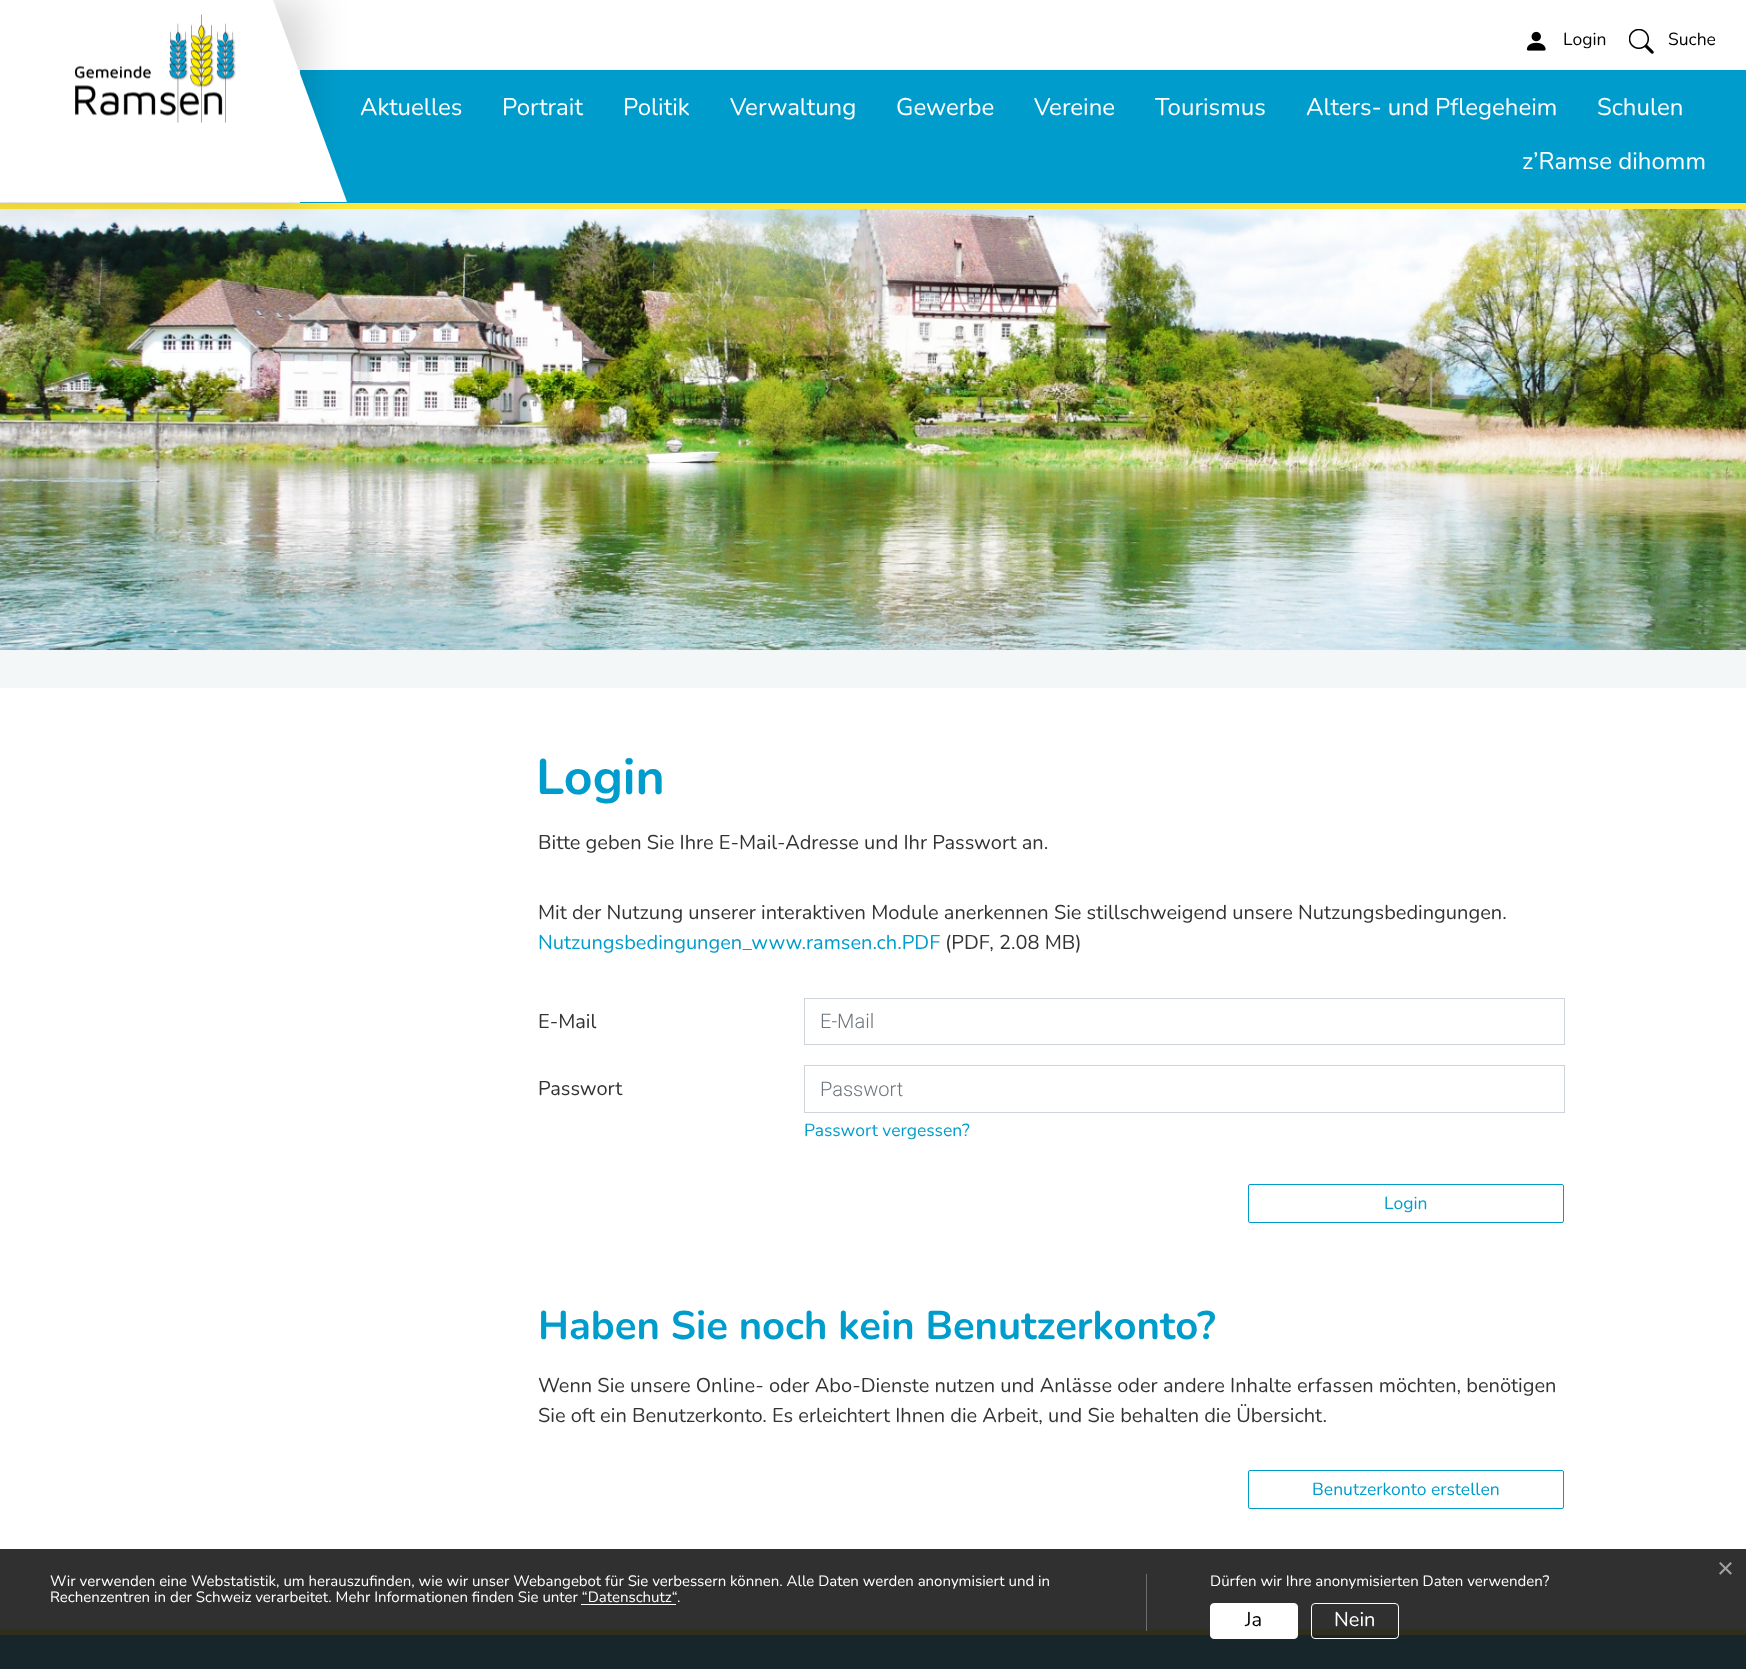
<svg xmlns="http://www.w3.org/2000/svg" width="1746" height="1669">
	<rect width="100%" height="100%" fill="#FFFFFF" />
	<rect x="0" y="1549" width="1746" height="80" fill="#303030" />
	<image x="0" y="202" width="1746" height="448" href="assets/img4.png" />
	<rect x="0" y="203" width="1746" height="6" fill="#FEE73B" />
	<rect x="300" y="70" width="1446" height="133" fill="#009DCC" />
	<rect x="-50" y="0" width="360" height="203" fill="#000000" fill-opacity="0.15" filter="blur(19px)" />
	<path d="M-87 0H273L347 202H-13Z" fill="#FFFFFF" />
	<image x="75" y="14" width="161" height="109" href="assets/img1.png" />
	<image x="1526" y="31" width="20" height="20" href="assets/img2.png" />
	<text x="1563" y="45" font-family="Nunito" font-size="17.5" fill="#000000">Login</text>
	<image x="1629" y="29" width="25" height="25" href="assets/img3.png" />
	<text x="1668" y="45" font-family="Nunito" font-size="17.5" fill="#000000">Suche</text>
	<g font-family="Nunito" font-size="24" fill="#FFFFFF">
		<text x="360" y="115">Aktuelles</text>
		<text x="502" y="115">Portrait</text>
		<text x="623" y="115">Politik</text>
		<text x="730" y="115">Verwaltung</text>
		<text x="896" y="115">Gewerbe</text>
		<text x="1034" y="115">Vereine</text>
		<text x="1155" y="115">Tourismus</text>
		<text x="1306" y="115">Alters- und Pflegeheim</text>
		<text x="1597" y="115">Schulen</text>
		<text x="1522" y="169">z’Ramse dihomm</text>
	</g>
	<rect x="0" y="650" width="1746" height="38" fill="#F4F7F8" />
	<text x="536" y="794" font-family="Nunito" font-size="50" font-weight="700" fill="#009DCC">Login</text>
	<g font-family="Nunito" font-size="20" fill="#333333">
		<text x="538" y="849">Bitte geben Sie Ihre E-Mail-Adresse und Ihr Passwort an.</text>
		<text x="538" y="919">Mit der Nutzung unserer interaktiven Module anerkennen Sie stillschweigend unsere Nutzungsbedingungen.</text>
	</g>
	<text x="538" y="949" font-family="Nunito" font-size="20" fill="#009DCC">Nutzungsbedingungen_www.ramsen.ch.PDF</text>
	<g font-family="Nunito" font-size="20" fill="#333333">
		<text x="945" y="949">(PDF, 2.08 MB)</text>
		<text x="538" y="1028">E-Mail</text>
	</g>
	<rect x="804.5" y="998.5" width="760" height="46" fill="none" stroke="#CED4DA" />
	<text x="820" y="1028" font-family="Roboto" font-size="20" font-weight="300" fill="#6C757D">E-Mail</text>
	<text x="538" y="1095" font-family="Nunito" font-size="20" fill="#333333">Passwort</text>
	<rect x="804.5" y="1065.5" width="760" height="47" fill="none" stroke="#CED4DA" />
	<text x="820" y="1096" font-family="Roboto" font-size="20" font-weight="300" fill="#6C757D">Passwort</text>
	<text x="804" y="1136" font-family="Nunito" font-size="17.5" fill="#009DCC">Passwort vergessen?</text>
	<rect x="1248.5" y="1184.5" width="315" height="38" rx="1.5" fill="none" stroke="#009DCC" />
	<text x="1384" y="1209" font-family="Nunito" font-size="17.5" fill="#009DCC">Login</text>
	<text x="538" y="1339" font-family="Nunito" font-size="40" font-weight="700" fill="#009DCC">Haben Sie noch kein Benutzerkonto?</text>
	<g font-family="Nunito" font-size="20" fill="#333333">
		<text x="538" y="1392">Wenn Sie unsere Online- oder Abo-Dienste nutzen und Anlässe oder andere Inhalte erfassen möchten, benötigen</text>
		<text x="538" y="1422">Sie oft ein Benutzerkonto. Es erleichtert Ihnen die Arbeit, und Sie behalten die Übersicht.</text>
	</g>
	<rect x="1248.5" y="1470.5" width="315" height="38" rx="1.5" fill="none" stroke="#009DCC" />
	<text x="1312" y="1495" font-family="Nunito" font-size="17.5" fill="#009DCC">Benutzerkonto erstellen</text>
	<text x="1717" y="1578" font-family="Liberation Sans" font-size="29" fill="#A2A2A2">×</text>
	<rect x="0" y="1629" width="1746" height="6" fill="#302E1C" />
	<rect x="1146" y="1574" width="1" height="57" fill="#6D6D6D" />
	<g font-family="Nunito" font-size="15" fill="#FFFFFF">
		<text x="50" y="1586">Wir verwenden eine Webstatistik, um herauszufinden, wie wir unser Webangebot für Sie verbessern können. Alle Daten werden anonymisiert und in</text>
		<text x="50" y="1602">Rechenzentren in der Schweiz verarbeitet. Mehr Informationen finden Sie unter “Datenschutz“</text>
		<text x="677" y="1602">.</text>
	</g>
	<rect x="581" y="1604" width="95" height="1" fill="#FFFFFF" />
	<text x="1210" y="1586" font-family="Nunito" font-size="15" fill="#FFFFFF">Dürfen wir Ihre anonymisierten Daten verwenden?</text>
	<rect x="0" y="1635" width="1746" height="34" fill="#17262B" />
	<rect x="1210.5" y="1603.5" width="87" height="35" rx="3.5" fill="#FFFFFF" stroke="#FFFFFF" />
	<text x="1245" y="1626" font-family="Nunito" font-size="20" fill="#000000">Ja</text>
	<rect x="1311.5" y="1603.5" width="87" height="35" rx="3.5" fill="none" stroke="#FFFFFF" />
	<text x="1334" y="1626" font-family="Nunito" font-size="20" fill="#FFFFFF">Nein</text>
</svg>
